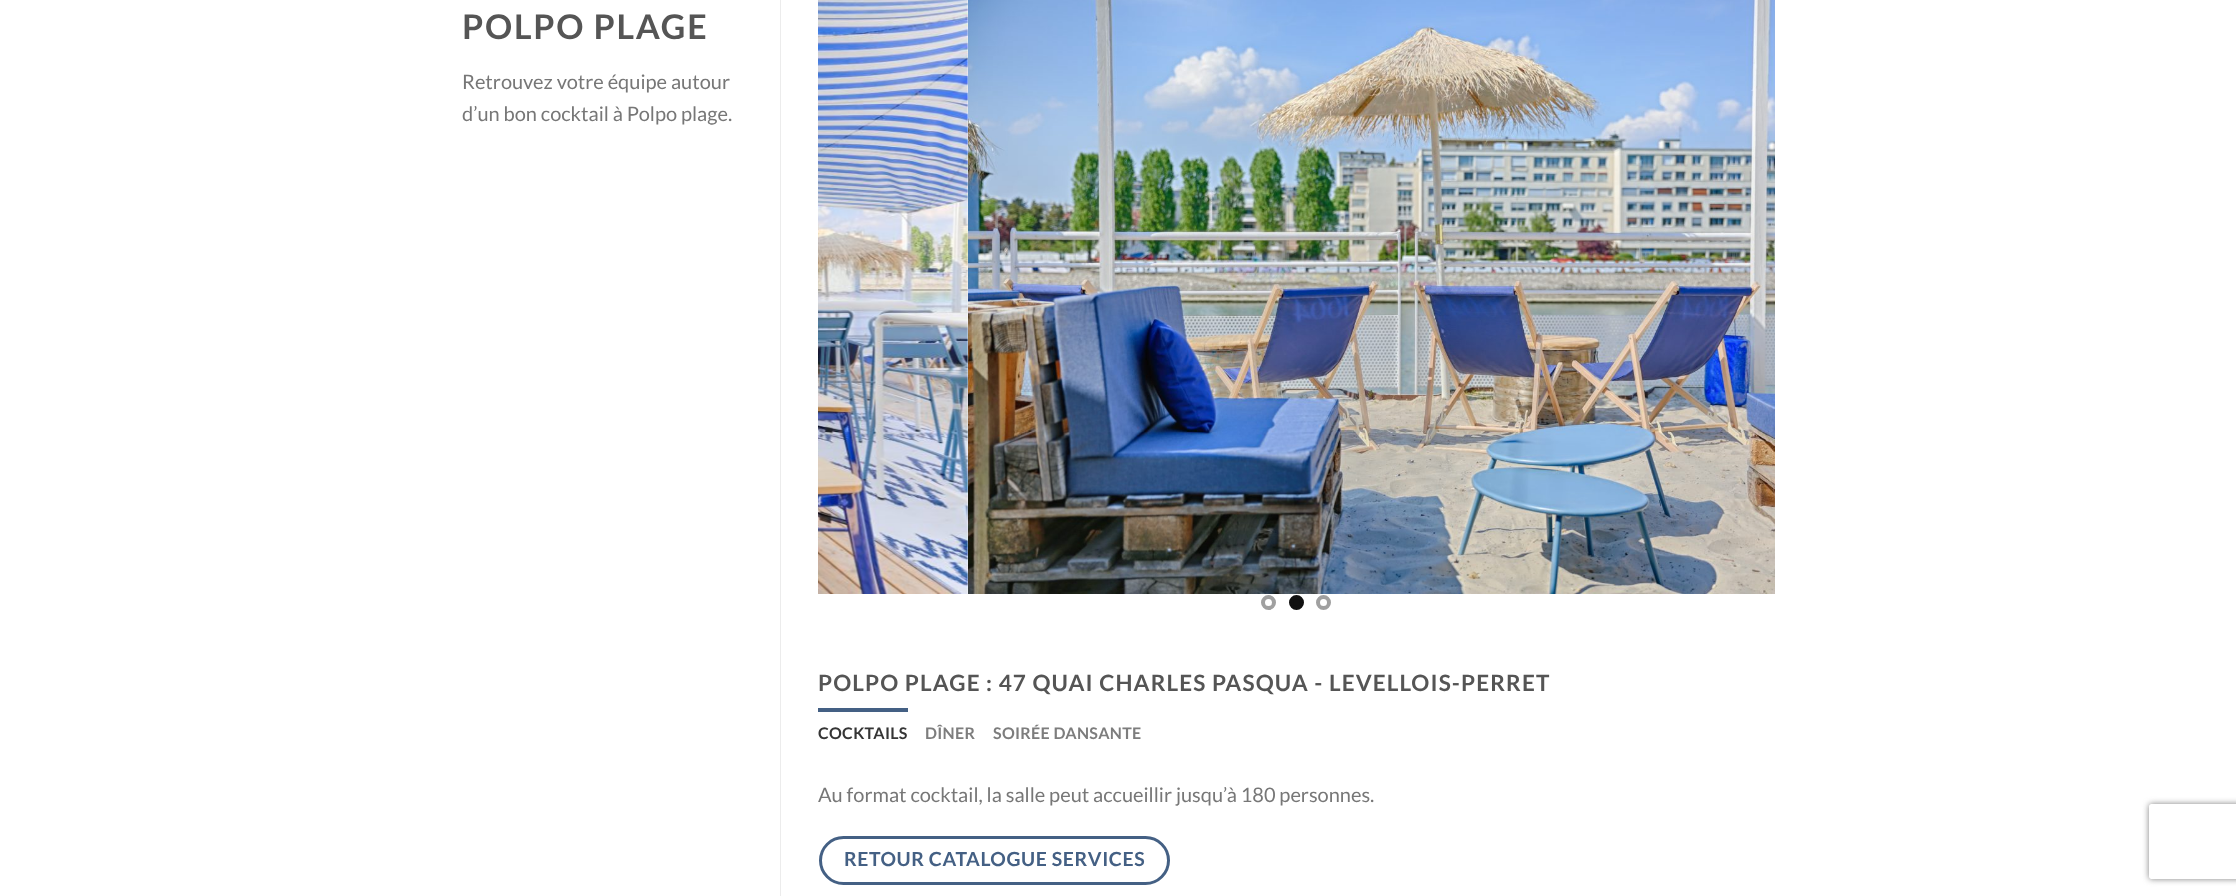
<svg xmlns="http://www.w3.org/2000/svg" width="2236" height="896">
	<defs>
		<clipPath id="clip1"><path d="M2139 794H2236V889H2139ZM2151.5 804H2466.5C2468 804 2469 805 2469 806.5V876.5C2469 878 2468 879 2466.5 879H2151.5C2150 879 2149 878 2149 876.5V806.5C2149 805 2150 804 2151.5 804Z" clip-rule="evenodd" /></clipPath>
	</defs>
	<rect width="100%" height="100%" fill="#FFFFFF" />
	<rect x="780" y="0" width="1" height="896" fill="#ECECEC" />
	<text x="462" y="39" font-family="Lato" font-size="34" font-weight="700" letter-spacing="1.75" fill="#555555">POLPO PLAGE</text>
	<g font-family="Lato" font-size="20" fill="#777777">
		<text x="462" y="89">Retrouvez votre équipe autour</text>
		<text x="462" y="121">d’un bon cocktail à Polpo plage.</text>
	</g>
	<image x="818" y="0" width="150" height="594" href="assets/img1.png" />
	<image x="968" y="0" width="807" height="594" href="assets/img2.png" />
	<circle cx="1268.5" cy="602.5" r="5.5" fill="none" stroke="#A0A0A0" stroke-width="4" />
	<circle cx="1296.5" cy="602.5" r="5.5" fill="#111111" stroke="#111111" stroke-width="4" />
	<circle cx="1323.5" cy="602.5" r="5.5" fill="none" stroke="#A0A0A0" stroke-width="4" />
	<text x="818" y="691" font-family="Lato" font-size="22.5" font-weight="700" letter-spacing="1.12" fill="#555555">POLPO PLAGE : 47 QUAI CHARLES PASQUA - LEVELLOIS-PERRET</text>
	<rect x="818" y="708" width="90" height="4" fill="#446084" />
	<text x="818" y="739" font-family="Lato" font-size="16" font-weight="700" letter-spacing="0.3" fill="#353535">COCKTAILS</text>
	<g font-family="Lato" font-size="16" font-weight="700" letter-spacing="0.3" fill="#7D7D7D">
		<text x="925" y="739">DÎNER</text>
		<text x="993" y="739">SOIRÉE DANSANTE</text>
	</g>
	<text x="818" y="802" font-family="Lato" font-size="20" fill="#777777">Au format cocktail, la salle peut accueillir jusqu’à 180 personnes.</text>
	<rect x="820.5" y="837.5" width="348" height="46" rx="23" fill="none" stroke="#446084" stroke-width="3" />
	<text x="844" y="866" font-family="Lato" font-size="19.4" font-weight="700" letter-spacing="0.6" fill="#446084">RETOUR CATALOGUE SERVICES</text>
	<g clip-path="url(#clip1)">
		<rect x="2149" y="804" width="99" height="75" rx="2.5" fill="#808080" filter="blur(3px)" />
	</g>
</svg>
